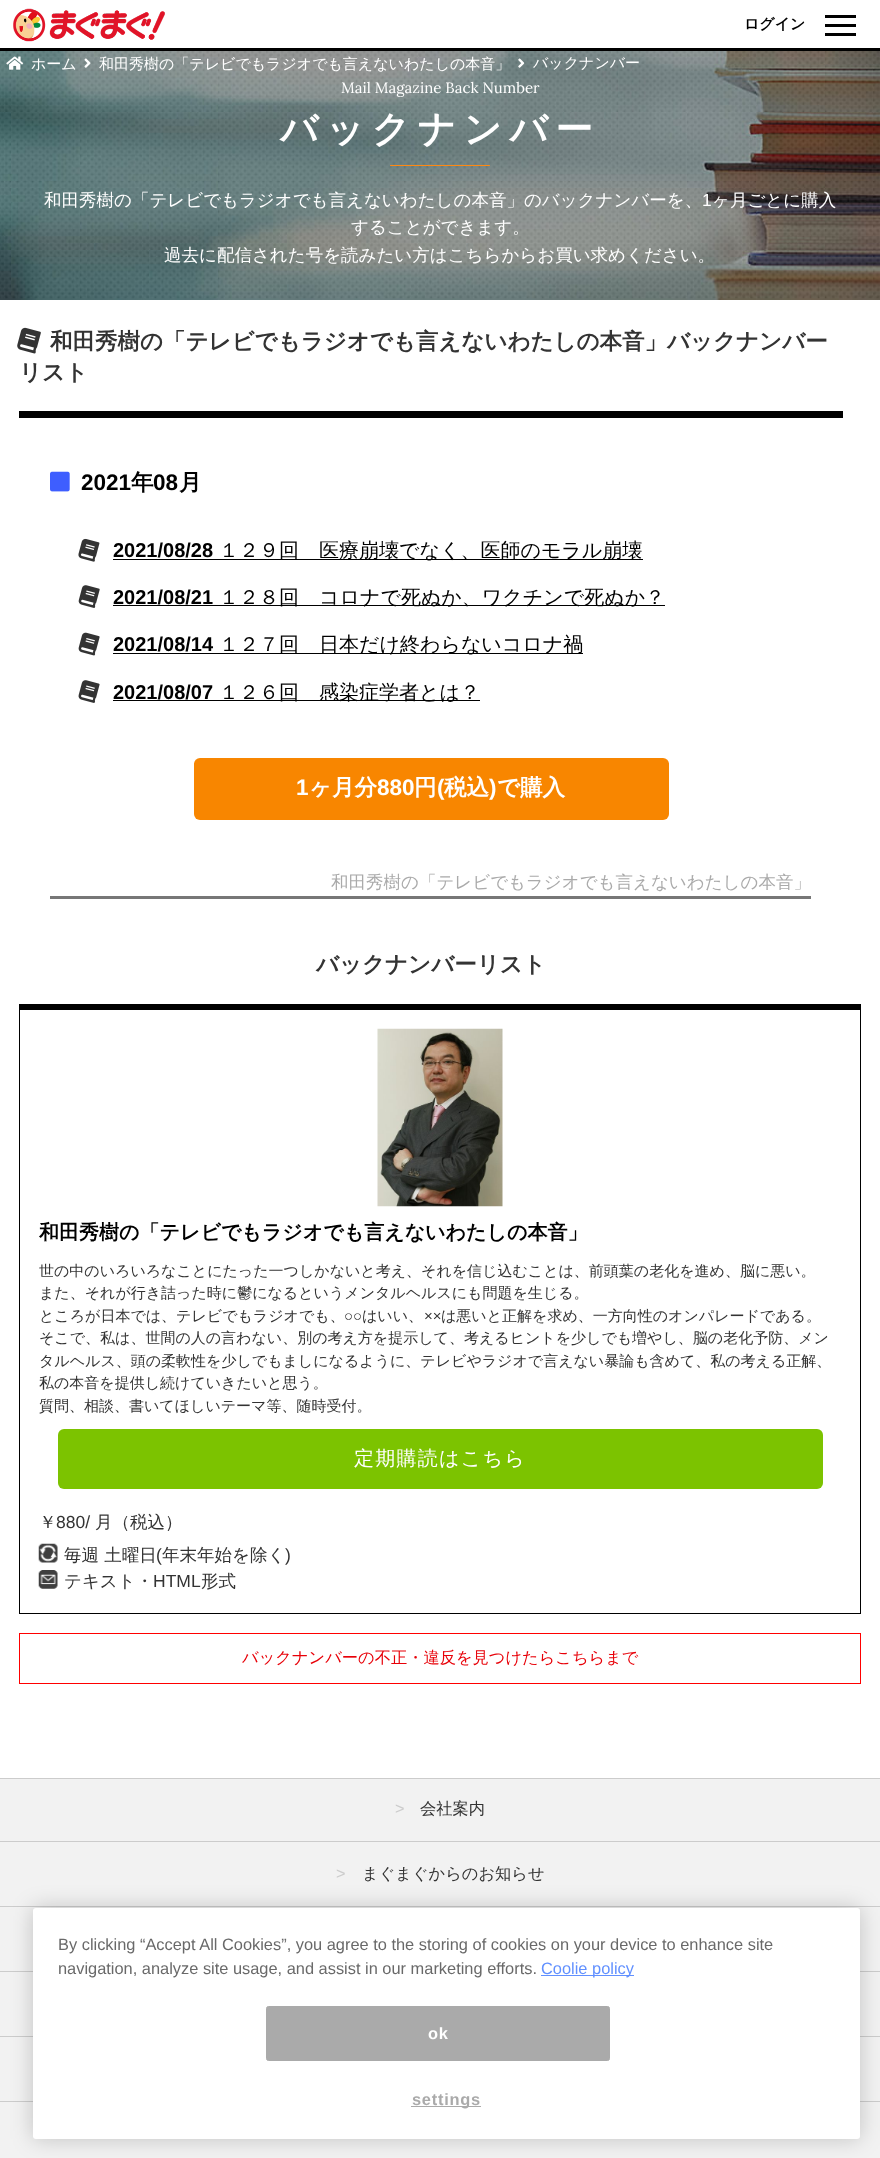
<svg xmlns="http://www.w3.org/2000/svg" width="880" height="2158">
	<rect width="100%" height="100%" fill="#FFFFFF" />
	<rect x="0" y="48" width="880" height="3" fill="#000000" />
	<image x="13" y="8" width="152" height="34" href="assets/img1.png" />
	<text x="744" y="29" font-family="WenQuanYi Zen Hei" font-size="15" font-weight="700" fill="#000000">ログイン</text>
	<rect x="825" y="15" width="31" height="3" fill="#000000" />
	<rect x="825" y="24" width="31" height="3" fill="#000000" />
	<rect x="825" y="33" width="31" height="3" fill="#000000" />
	<image x="0" y="51" width="880" height="249" href="assets/img2.png" />
	<image x="6" y="56" width="18" height="14" href="assets/img3.png" />
	<text x="31" y="69" font-family="WenQuanYi Zen Hei" font-size="15" font-weight="500" fill="#FFFFFF">ホーム</text>
	<image x="84" y="58" width="7" height="10" href="assets/img4.png" />
	<text x="99" y="69" font-family="WenQuanYi Zen Hei" font-size="15" font-weight="500" fill="#FFFFFF">和田秀樹の「テレビでもラジオでも言えないわたしの本音」</text>
	<image x="518" y="58" width="7" height="10" href="assets/img5.png" />
	<text x="533" y="68" font-family="WenQuanYi Zen Hei" font-size="15" font-weight="500" fill="#FFFFFF">バックナンバー</text>
	<text x="341" y="93" font-family="Lora" font-size="15" fill="#FFFFFF">Mail Magazine Back Number</text>
	<text x="280" y="142" font-family="WenQuanYi Zen Hei" font-size="37.5" font-weight="700" letter-spacing="7.5" fill="#FFFFFF">バックナンバー</text>
	<rect x="390" y="165" width="100" height="1" rx="0.5" fill="#FF8912" />
	<text x="44" y="206" font-family="WenQuanYi Zen Hei" font-size="17.5" font-weight="500" fill="#FFFFFF">和田秀樹の「テレビでもラジオでも言えないわたしの本音」のバックナンバーを、</text>
	<text x="702" y="206" font-family="Liberation Sans" font-size="17.5" fill="#FFFFFF">1</text>
	<g font-family="WenQuanYi Zen Hei" font-size="17.5" font-weight="500" fill="#FFFFFF">
		<text x="712" y="206">ヶ月ごとに購入</text>
		<text x="351" y="233">することができます。</text>
		<text x="164" y="261">過去に配信された号を読みたい方はこちらからお買い求めください。</text>
	</g>
	<rect x="19" y="411" width="824" height="7" fill="#000000" />
	<image x="17" y="327" width="24" height="27" href="assets/img6.png" />
	<g font-family="WenQuanYi Zen Hei" font-size="22.5" font-weight="700" fill="#333333">
		<text x="50" y="349">和田秀樹の「テレビでもラジオでも言えないわたしの本音」バックナンバー</text>
		<text x="19" y="380">リスト</text>
	</g>
	<rect x="50" y="896" width="761" height="3" fill="#777777" />
	<image x="50" y="471" width="20" height="21" href="assets/img7.png" />
	<text x="81" y="490" font-family="Liberation Sans" font-size="22.5" font-weight="700" fill="#000000">2021</text>
	<text x="131" y="490" font-family="WenQuanYi Zen Hei" font-size="22.5" font-weight="700" fill="#000000">年</text>
	<text x="153" y="490" font-family="Liberation Sans" font-size="22.5" font-weight="700" fill="#000000">08</text>
	<text x="179" y="490" font-family="WenQuanYi Zen Hei" font-size="22.5" font-weight="700" fill="#000000">月</text>
	<image x="78" y="538" width="22" height="24" href="assets/img8.png" />
	<text x="113" y="557" font-family="Liberation Sans" font-size="20" font-weight="700" fill="#000000">2021/08/28</text>
	<rect x="113" y="559" width="530" height="1" fill="#000000" />
	<text x="219" y="557" font-family="WenQuanYi Zen Hei" font-size="20" font-weight="500" fill="#000000">１２９回　医療崩壊でなく、医師のモラル崩壊</text>
	<image x="78" y="585" width="22" height="23" href="assets/img9.png" />
	<text x="113" y="604" font-family="Liberation Sans" font-size="20" font-weight="700" fill="#000000">2021/08/21</text>
	<rect x="113" y="605" width="552" height="1" fill="#000000" />
	<text x="219" y="604" font-family="WenQuanYi Zen Hei" font-size="20" font-weight="500" fill="#000000">１２８回　コロナで死ぬか、ワクチンで死ぬか？</text>
	<image x="78" y="632" width="22" height="24" href="assets/img10.png" />
	<text x="113" y="651" font-family="Liberation Sans" font-size="20" font-weight="700" fill="#000000">2021/08/14</text>
	<rect x="113" y="653" width="470" height="1" fill="#000000" />
	<text x="219" y="651" font-family="WenQuanYi Zen Hei" font-size="20" font-weight="500" fill="#000000">１２７回　日本だけ終わらないコロナ禍</text>
	<image x="78" y="680" width="22" height="23" href="assets/img11.png" />
	<text x="113" y="699" font-family="Liberation Sans" font-size="20" font-weight="700" fill="#000000">2021/08/07</text>
	<rect x="113" y="700" width="367" height="1" fill="#000000" />
	<text x="219" y="699" font-family="WenQuanYi Zen Hei" font-size="20" font-weight="500" fill="#000000">１２６回　感染症学者とは？</text>
	<rect x="194" y="758" width="475" height="62" rx="6" fill="#F88600" />
	<text x="296" y="795" font-family="Liberation Sans" font-size="22.5" font-weight="700" fill="#FFFFFF">1</text>
	<text x="309" y="795" font-family="WenQuanYi Zen Hei" font-size="22.5" font-weight="700" fill="#FFFFFF">ヶ月分</text>
	<text x="377" y="795" font-family="Liberation Sans" font-size="22.5" font-weight="700" fill="#FFFFFF">880</text>
	<text x="414" y="795" font-family="WenQuanYi Zen Hei" font-size="22.5" font-weight="700" fill="#FFFFFF">円</text>
	<text x="437" y="795" font-family="Liberation Sans" font-size="22.5" font-weight="700" fill="#FFFFFF">(</text>
	<text x="444" y="795" font-family="WenQuanYi Zen Hei" font-size="22.5" font-weight="700" fill="#FFFFFF">税込</text>
	<text x="489" y="795" font-family="Liberation Sans" font-size="22.5" font-weight="700" fill="#FFFFFF">)</text>
	<text x="497" y="795" font-family="WenQuanYi Zen Hei" font-size="22.5" font-weight="700" fill="#FFFFFF">で購入</text>
	<text x="331" y="888" font-family="WenQuanYi Zen Hei" font-size="17.5" font-weight="500" fill="#AAAAAA">和田秀樹の「テレビでもラジオでも言えないわたしの本音」</text>
	<text x="316" y="972" font-family="WenQuanYi Zen Hei" font-size="22.5" font-weight="700" fill="#333333">バックナンバーリスト</text>
	<rect x="19" y="1004" width="842" height="6" fill="#000000" />
	<rect x="860" y="1004" width="1" height="610" fill="#000000" />
	<rect x="19" y="1613" width="842" height="1" fill="#000000" />
	<rect x="19" y="1004" width="1" height="610" fill="#000000" />
	<image x="377" y="1028" width="126" height="179" href="assets/img12.png" />
	<text x="39" y="1239" font-family="WenQuanYi Zen Hei" font-size="20" font-weight="700" fill="#000000">和田秀樹の「テレビでもラジオでも言えないわたしの本音」</text>
	<g font-family="WenQuanYi Zen Hei" font-size="15" font-weight="500" fill="#333333">
		<text x="39" y="1276">世の中のいろいろなことにたった一つしかないと考え、それを信じ込むことは、前頭葉の老化を進め、脳に悪い。</text>
		<text x="39" y="1298">また、それが行き詰った時に鬱になるというメンタルヘルスにも問題を生じる。</text>
		<text x="39" y="1321">ところが日本では、テレビでもラジオでも、</text>
	</g>
	<text x="344" y="1321" font-family="Liberation Sans" font-size="15" fill="#333333">○○</text>
	<text x="362" y="1321" font-family="WenQuanYi Zen Hei" font-size="15" font-weight="500" fill="#333333">はいい、</text>
	<text x="424" y="1321" font-family="Liberation Sans" font-size="15" fill="#333333">××</text>
	<g font-family="WenQuanYi Zen Hei" font-size="15" font-weight="500" fill="#333333">
		<text x="441" y="1321">は悪いと正解を求め、一方向性のオンパレードである。</text>
		<text x="39" y="1343">そこで、私は、世間の人の言わない、別の考え方を提示して、考えるヒントを少しでも増やし、脳の老化予防、メン</text>
		<text x="39" y="1366">タルヘルス、頭の柔軟性を少しでもましになるように、テレビやラジオで言えない暴論も含めて、私の考える正解、</text>
		<text x="39" y="1388">私の本音を提供し続けていきたいと思う。</text>
		<text x="39" y="1411">質問、相談、書いてほしいテーマ等、随時受付。</text>
	</g>
	<rect x="58" y="1429" width="765" height="60" rx="6" fill="#7CC300" />
	<text x="354" y="1465" font-family="WenQuanYi Zen Hei" font-size="20" font-weight="500" letter-spacing="1.25" fill="#FFFFFF">定期購読はこちら</text>
	<text x="39" y="1528" font-family="WenQuanYi Zen Hei" font-size="17.5" font-weight="500" fill="#333333">￥</text>
	<text x="56" y="1528" font-family="Liberation Sans" font-size="17.5" fill="#333333">880/</text>
	<text x="95" y="1528" font-family="WenQuanYi Zen Hei" font-size="17.5" font-weight="500" fill="#333333">月（税込）</text>
	<image x="38" y="1543" width="20" height="20" href="assets/img13.png" />
	<text x="64" y="1561" font-family="WenQuanYi Zen Hei" font-size="17.5" font-weight="500" fill="#333333">毎週 土曜日</text>
	<text x="156" y="1561" font-family="Liberation Sans" font-size="17.5" fill="#333333">(</text>
	<text x="162" y="1561" font-family="WenQuanYi Zen Hei" font-size="17.5" font-weight="500" fill="#333333">年末年始を除く</text>
	<text x="285" y="1561" font-family="Liberation Sans" font-size="17.5" fill="#333333">)</text>
	<image x="38" y="1570" width="20" height="19" href="assets/img14.png" />
	<text x="64" y="1587" font-family="WenQuanYi Zen Hei" font-size="17.5" font-weight="500" fill="#333333">テキスト・</text>
	<text x="153" y="1587" font-family="Liberation Sans" font-size="17.5" fill="#333333">HTML</text>
	<text x="201" y="1587" font-family="WenQuanYi Zen Hei" font-size="17.5" font-weight="500" fill="#333333">形式</text>
	<rect x="19.5" y="1633.5" width="841" height="50" fill="none" stroke="#FF0000" />
	<text x="242" y="1663" font-family="WenQuanYi Zen Hei" font-size="16.25" font-weight="500" fill="#E80008">バックナンバーの不正・違反を見つけたらこちらまで</text>
	<rect x="0" y="1779" width="880" height="379" fill="#F2F2F2" />
	<rect x="0" y="1778" width="880" height="1" fill="#CCCCCC" />
	<rect x="0" y="1841" width="880" height="1" fill="#CCCCCC" />
	<text x="395" y="1814" font-family="Liberation Sans" font-size="16.25" fill="#CCCCCC">&gt;</text>
	<text x="420" y="1814" font-family="WenQuanYi Zen Hei" font-size="16.25" font-weight="500" fill="#333333">会社案内</text>
	<rect x="0" y="1906" width="880" height="1" fill="#CCCCCC" />
	<text x="336" y="1879" font-family="Liberation Sans" font-size="16.25" fill="#CCCCCC">&gt;</text>
	<text x="362" y="1879" font-family="WenQuanYi Zen Hei" font-size="16.25" font-weight="500" fill="#333333">まぐまぐからのお知らせ</text>
	<rect x="0" y="1971" width="880" height="1" fill="#CCCCCC" />
	<rect x="0" y="2036" width="880" height="1" fill="#CCCCCC" />
	<rect x="0" y="2101" width="880" height="1" fill="#CCCCCC" />
	<rect x="33" y="1908" width="827" height="231" rx="3" fill="#000000" fill-opacity="0.2" filter="blur(11px)" />
	<rect x="33" y="1908" width="827" height="231" rx="3" fill="#FFFFFF" />
	<g font-family="Liberation Sans" font-size="16.4" fill="#696969">
		<text x="58" y="1950">By clicking “Accept All Cookies”, you agree to the storing of cookies on your device to enhance site</text>
		<text x="58" y="1974">navigation, analyze site usage, and assist in our marketing efforts.</text>
	</g>
	<rect x="541" y="1975" width="93" height="1" fill="#6190FF" />
	<text x="541" y="1974" font-family="Liberation Sans" font-size="16.4" fill="#6190FF">Coolie policy</text>
	<rect x="266.5" y="2006.5" width="343" height="54" rx="2" fill="#AAAAAA" stroke="#AAAAAA" />
	<text x="428" y="2039" font-family="Liberation Sans" font-size="16.4" font-weight="700" letter-spacing="0.75" fill="#FFFFFF">ok</text>
	<rect x="411" y="2106" width="70" height="1" fill="#AAAAAA" />
	<text x="412" y="2105" font-family="Liberation Sans" font-size="16.4" font-weight="700" letter-spacing="0.75" fill="#AAAAAA">settings</text>
</svg>
